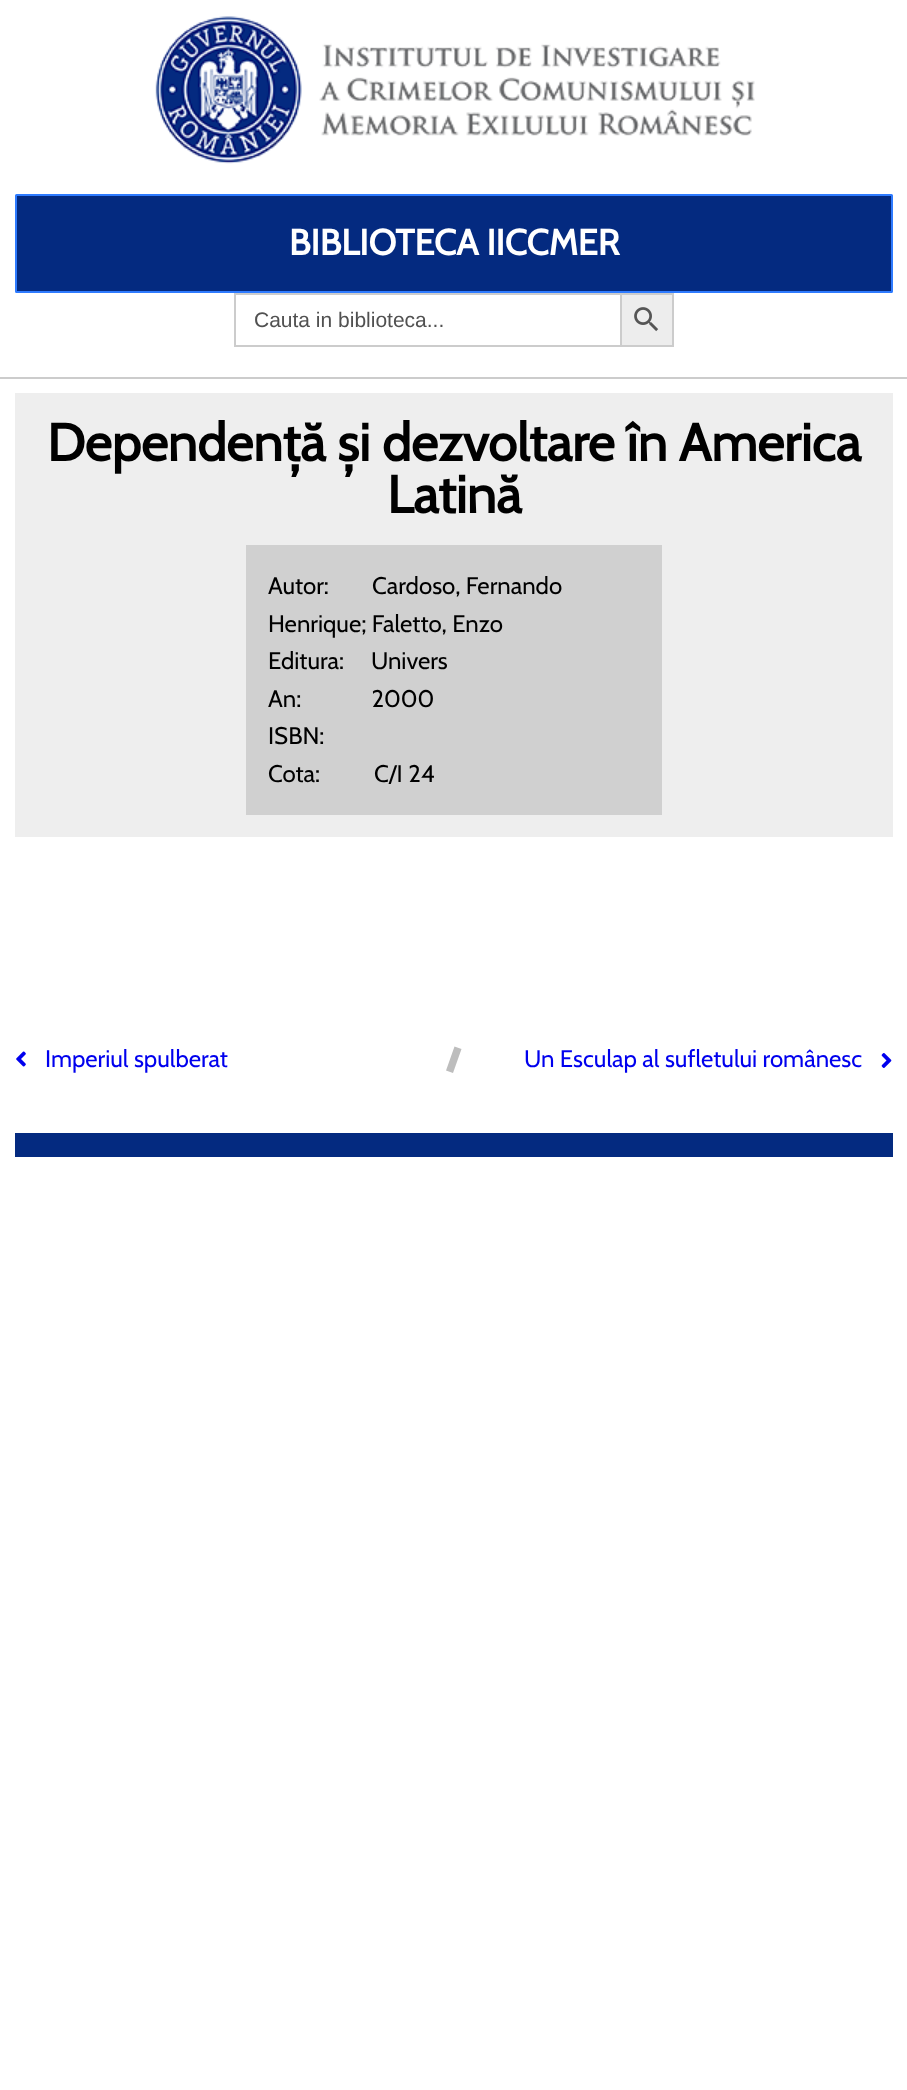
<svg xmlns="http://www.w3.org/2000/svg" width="907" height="2090">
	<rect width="100%" height="100%" fill="#FFFFFF" />
	<image x="155" y="16" width="600" height="148" href="assets/img1.png" />
	<rect x="0" y="377" width="907" height="2" fill="#CCCCCC" />
	<rect x="16" y="195" width="876" height="97" rx="0.5" fill="#042A80" stroke="#2E7BFF" stroke-width="2" />
	<text x="289" y="255" font-family="Cabin" font-size="36" font-weight="700" fill="#FFFFFF">BIBLIOTECA IICCMER</text>
	<rect x="234" y="293" width="386" height="2" fill="#CCCCCC" />
	<rect x="234" y="345" width="386" height="2" fill="#CCCCCC" />
	<rect x="234" y="293" width="2" height="54" fill="#CCCCCC" />
	<text x="254" y="327" font-family="Liberation Sans" font-size="21" fill="#515151">Cauta in biblioteca...</text>
	<rect x="621" y="294" width="52" height="52" fill="#EDEDED" stroke="#CCCCCC" stroke-width="2" />
	<image x="634" y="307" width="25" height="25" href="assets/img2.png" />
	<rect x="15" y="393" width="878" height="444" fill="#EEEEEE" />
	<g font-family="Cabin" font-size="52.5" font-weight="700" fill="#000000">
		<text x="47" y="461">Dependență și dezvoltare în America</text>
		<text x="387" y="513">Latină</text>
	</g>
	<rect x="246" y="545" width="416" height="270" fill="#D0D0D0" />
	<g font-family="Cabin" font-size="24" fill="#000000">
		<text x="268" y="594" xml:space="preserve">Autor:        Cardoso, Fernando</text>
		<text x="268" y="632">Henrique; Faletto, Enzo</text>
		<text x="268" y="669" xml:space="preserve">Editura:     Univers</text>
		<text x="268" y="707" xml:space="preserve">An:             2000</text>
		<text x="268" y="744">ISBN:</text>
		<text x="268" y="782" xml:space="preserve">Cota:          C/I 24</text>
	</g>
	<image x="16" y="1051" width="10" height="16" href="assets/img3.png" />
	<text x="45" y="1067" font-family="Cabin" font-size="24" fill="#0000EE">Imperiul spulberat</text>
	<path d="M454.5 1046.5L461.5 1049L453 1073L446 1070.5Z" fill="#BDBDBD" />
	<text x="524" y="1067" font-family="Cabin" font-size="24" fill="#0000EE">Un Esculap al sufletului românesc</text>
	<image x="881" y="1053" width="11" height="15" href="assets/img4.png" />
	<rect x="15" y="1133" width="878" height="24" fill="#042A80" />
</svg>
